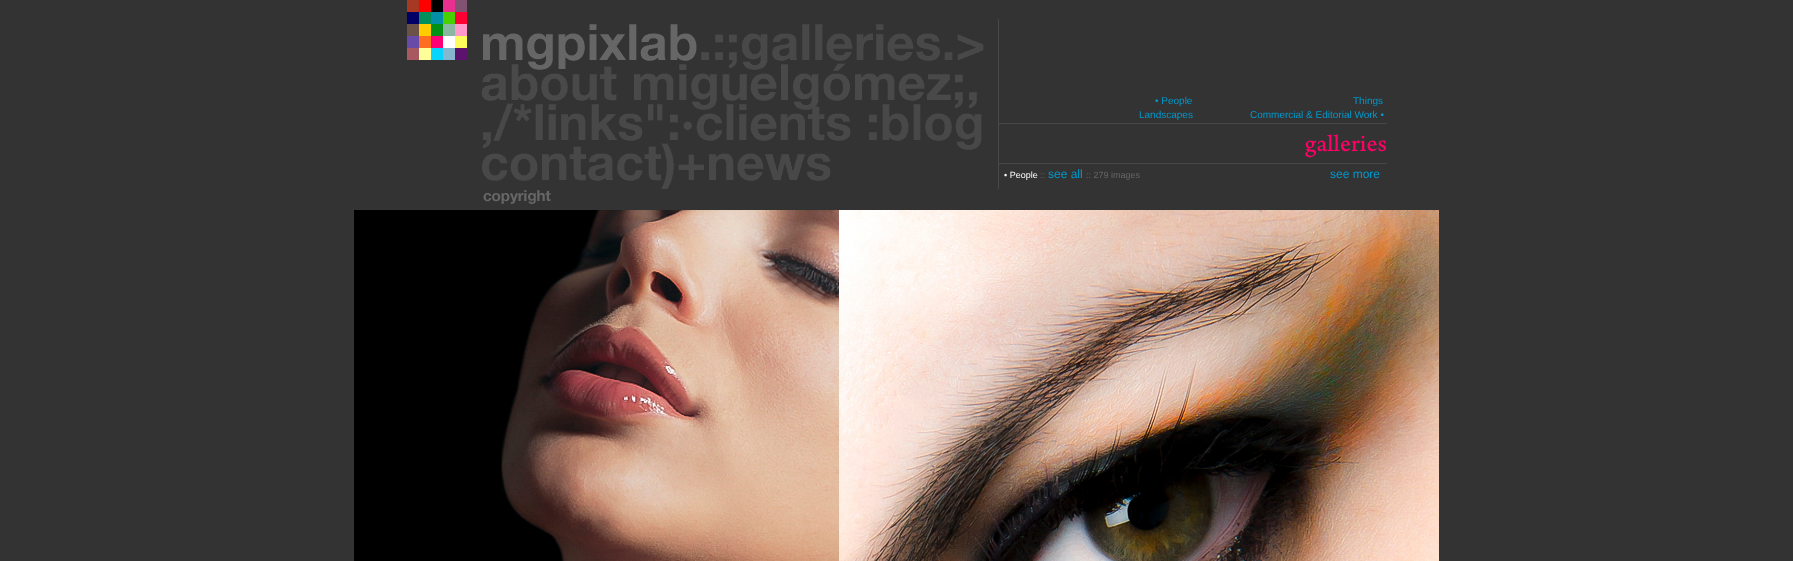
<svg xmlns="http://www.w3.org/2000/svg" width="1793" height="561">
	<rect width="100%" height="100%" fill="#333333" />
	<image x="407" y="0" width="60" height="60" href="assets/img1.png" />
	<image x="483" y="24" width="254" height="36" href="assets/img2.png" />
	<image x="742" y="19" width="257" height="41" href="assets/img3.png" />
	<image x="481" y="60" width="518" height="44" href="assets/img4.png" />
	<image x="483" y="104" width="185" height="40" href="assets/img5.png" />
	<image x="670" y="104" width="181" height="37" href="assets/img6.png" />
	<image x="869" y="104" width="130" height="40" href="assets/img7.png" />
	<image x="482" y="144" width="222" height="45" href="assets/img8.png" />
	<image x="709" y="144" width="290" height="45" href="assets/img9.png" />
	<image x="483" y="190" width="68" height="14" href="assets/img10.png" />
	<g font-family="Liberation Sans" font-size="10" fill="#0099CC">
		<text x="1155" y="104">• People</text>
		<text x="1353" y="104">Things</text>
		<text x="1139" y="118">Landscapes</text>
		<text x="1250" y="118">Commercial &amp; Editorial Work •</text>
	</g>
	<image x="999" y="123" width="388" height="41" href="assets/img11.png" />
	<text x="1004" y="178" font-family="Liberation Sans" font-size="9" fill="#FFFFFF">• People</text>
	<text x="1040" y="178" font-family="Liberation Sans" font-size="9" fill="#666666">::</text>
	<text x="1048" y="178" font-family="Liberation Sans" font-size="12" fill="#0099CC">see all</text>
	<text x="1086" y="178" font-family="Liberation Sans" font-size="9" fill="#666666">:: 279 images</text>
	<text x="1330" y="178" font-family="Liberation Sans" font-size="12" fill="#0099CC">see more</text>
	<image x="354" y="210" width="485" height="351" href="assets/img12.png" />
	<image x="839" y="210" width="600" height="351" href="assets/img13.png" />
</svg>
